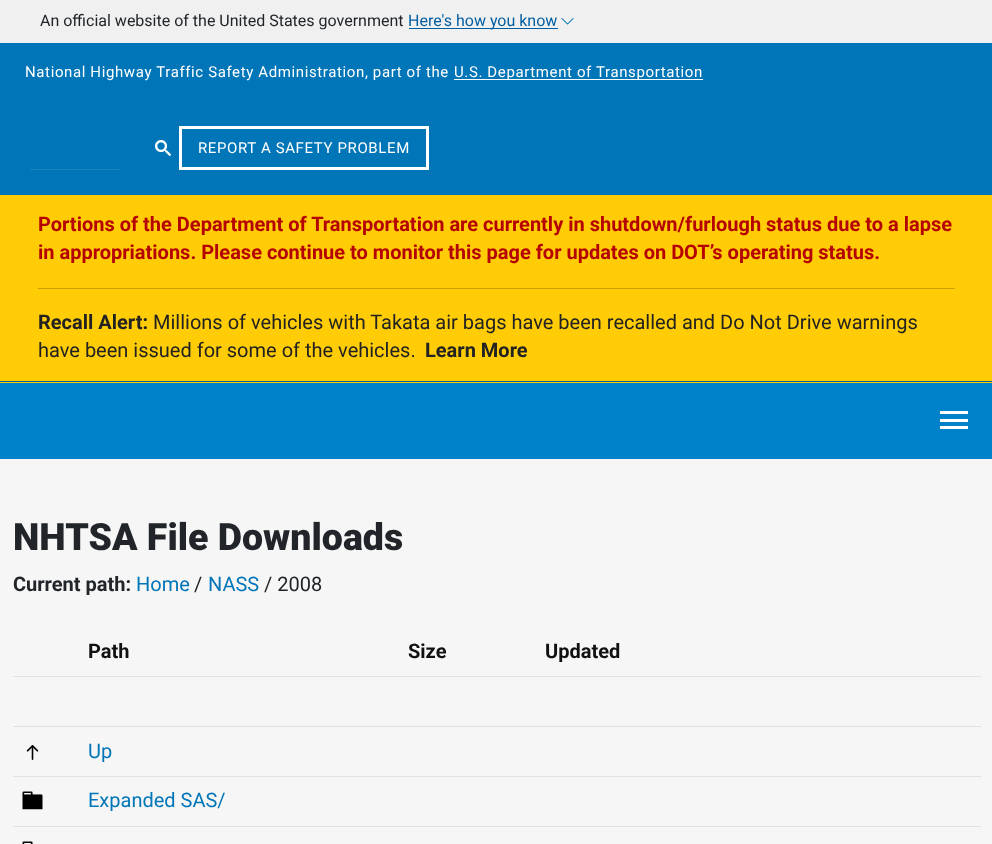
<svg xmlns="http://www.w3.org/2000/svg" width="992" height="844">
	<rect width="100%" height="100%" fill="#F0F0F0" />
	<text x="40" y="26" font-family="Roboto" font-size="16" fill="#212529">An official website of the United States government</text>
	<rect x="409" y="28" width="149" height="1" fill="#005EA2" />
	<text x="408" y="26" font-family="Roboto" font-size="16" fill="#005EA2">Here's how you know</text>
	<image x="561" y="18" width="13" height="7" href="assets/img1.png" />
	<rect x="0" y="43" width="992" height="152" fill="#0075B7" />
	<text x="25" y="77" font-family="Roboto" font-size="15" letter-spacing="0.62" fill="#FFFFFF">National Highway Traffic Safety Administration, part of the</text>
	<rect x="454" y="79" width="249" height="1" fill="#FFFFFF" />
	<text x="454" y="77" font-family="Roboto" font-size="15" letter-spacing="0.62" fill="#FFFFFF">U.S. Department of Transportation</text>
	<image x="155" y="140" width="16" height="16" href="assets/img2.png" />
	<rect x="30" y="169" width="90" height="1" fill="#1A83BE" />
	<rect x="180.5" y="127.5" width="247" height="41" fill="none" stroke="#FFFFFF" stroke-width="3" />
	<text x="198" y="153" font-family="Roboto" font-size="15" letter-spacing="0.62" fill="#FFFFFF">REPORT A SAFETY PROBLEM</text>
	<rect x="0" y="195" width="992" height="188" fill="#FFCC06" />
	<rect x="0" y="381" width="992" height="1" fill="#036297" />
	<g font-family="Roboto" font-size="20" font-weight="700" fill="#B50303">
		<text x="38" y="231">Portions of the Department of Transportation are currently in shutdown/furlough status due to a lapse</text>
		<text x="38" y="259">in appropriations. Please continue to monitor this page for updates on DOT’s operating status.</text>
	</g>
	<rect x="38" y="288" width="917" height="1" fill="#C8A20D" />
	<text x="38" y="329" font-family="Roboto" font-size="20" font-weight="700" fill="#222222">Recall Alert:</text>
	<g font-family="Roboto" font-size="20" fill="#222222">
		<text x="153" y="329">Millions of vehicles with Takata air bags have been recalled and Do Not Drive warnings</text>
		<text x="38" y="357">have been issued for some of the vehicles.</text>
	</g>
	<text x="425" y="357" font-family="Roboto" font-size="20" font-weight="700" fill="#222222">Learn More</text>
	<rect x="0" y="383" width="992" height="76" fill="#0082CB" />
	<rect x="940" y="411" width="28" height="3" fill="#FFFFFF" />
	<rect x="940" y="419" width="28" height="3" fill="#FFFFFF" />
	<rect x="940" y="426" width="28" height="3" fill="#FFFFFF" />
	<rect x="0" y="459" width="992" height="385" fill="#F6F6F6" />
	<text x="13" y="550" font-family="Roboto" font-size="37.5" font-weight="900" fill="#212529">NHTSA File Downloads</text>
	<text x="13" y="591" font-family="Roboto" font-size="20" font-weight="700" fill="#212529">Current path:</text>
	<text x="136" y="591" font-family="Roboto" font-size="20" fill="#0075B7">Home</text>
	<text x="194" y="591" font-family="Roboto" font-size="20" fill="#212529">/</text>
	<text x="208" y="591" font-family="Roboto" font-size="20" fill="#0075B7">NASS</text>
	<text x="264" y="591" font-family="Roboto" font-size="20" fill="#212529">/ 2008</text>
	<g font-family="Roboto" font-size="20" font-weight="700" fill="#111111">
		<text x="88" y="658">Path</text>
		<text x="408" y="658">Size</text>
	</g>
	<rect x="13" y="676" width="968" height="1" fill="#DEE2E6" />
	<text x="545" y="658" font-family="Roboto" font-size="20" font-weight="700" fill="#111111">Updated</text>
	<rect x="13" y="726" width="968" height="1" fill="#DEE2E6" />
	<image x="26" y="745" width="13" height="15" href="assets/img3.png" />
	<text x="88" y="758" font-family="Roboto" font-size="20" fill="#0075B7">Up</text>
	<rect x="13" y="776" width="968" height="1" fill="#DEE2E6" />
	<image x="22" y="791" width="21" height="19" href="assets/img4.png" />
	<text x="88" y="807" font-family="Roboto" font-size="20" fill="#0075B7">Expanded SAS/</text>
	<rect x="13" y="826" width="968" height="1" fill="#DEE2E6" />
	<image x="22" y="841" width="11" height="3" href="assets/img5.png" />
</svg>
